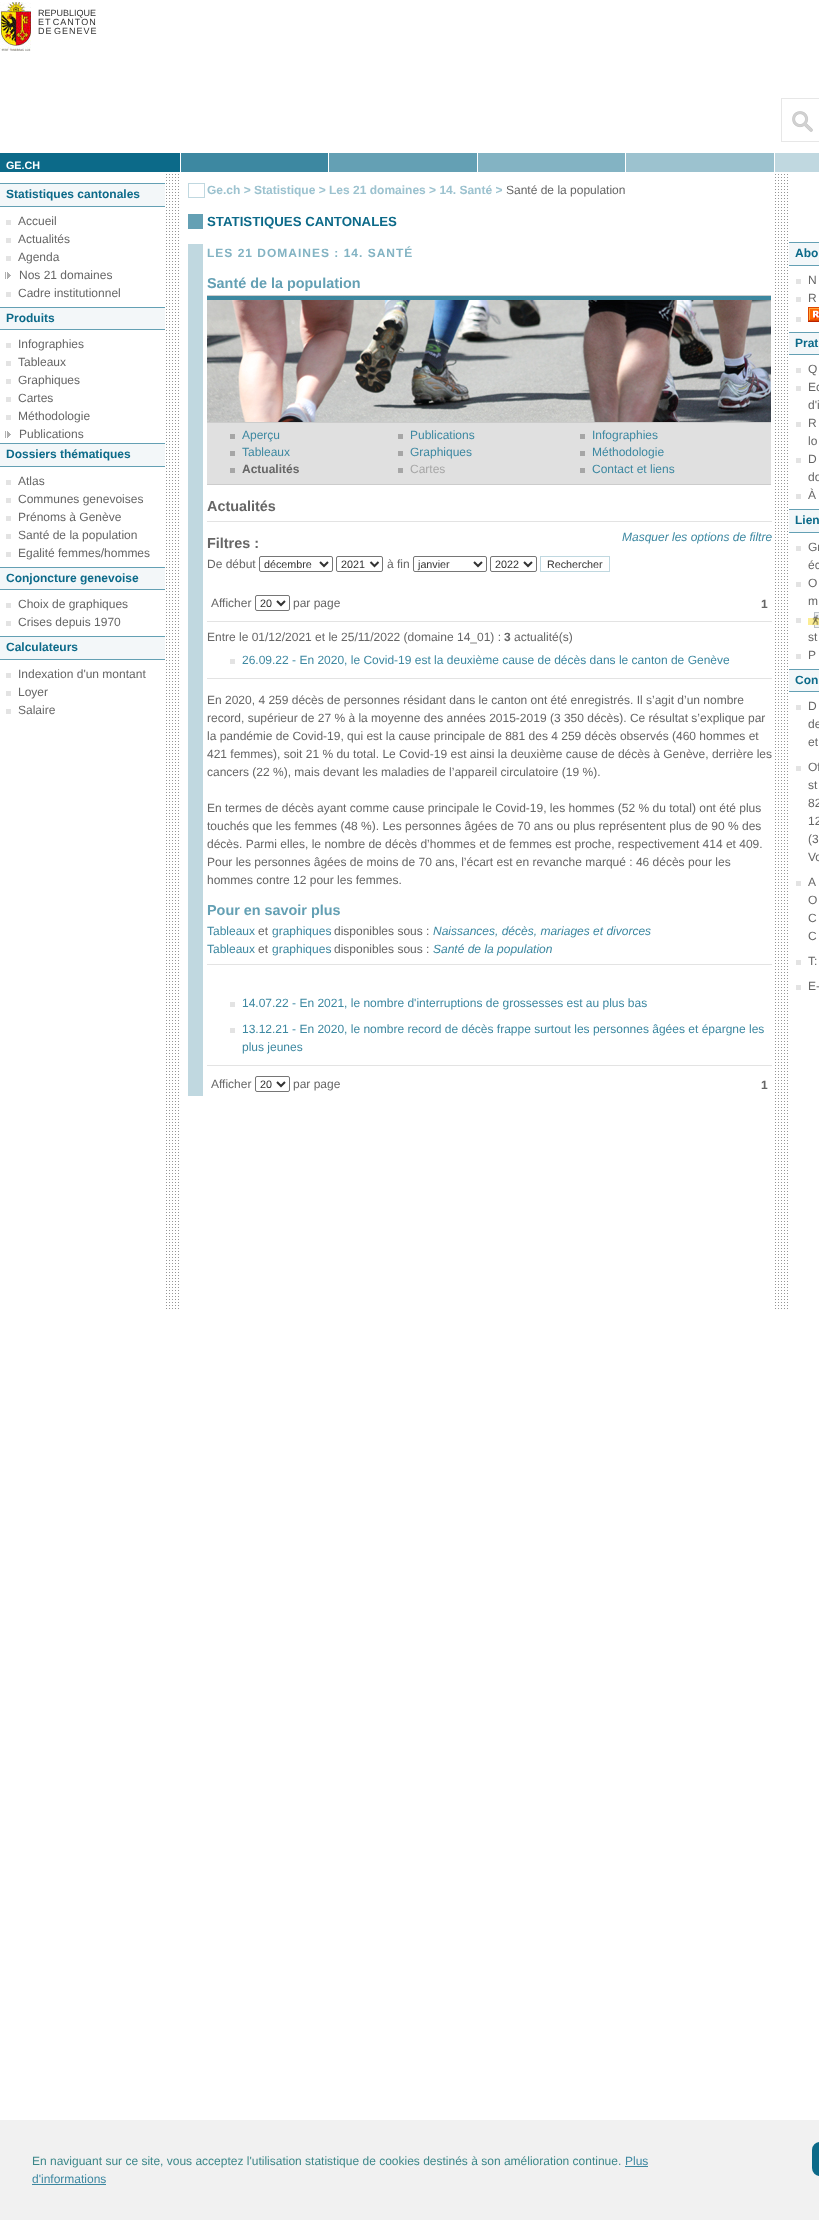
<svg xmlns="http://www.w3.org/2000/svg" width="819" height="2220">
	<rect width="100%" height="100%" fill="#FFFFFF" />
	<image x="0" y="2" width="31" height="49" href="assets/img1.png" />
	<text x="38" y="16" font-family="Liberation Sans" font-size="9" fill="#333333">REPUBLIQUE</text>
	<g font-family="Liberation Sans" font-size="9" letter-spacing="1" fill="#333333">
		<text x="38" y="25" word-spacing="-2">ET CANTON</text>
		<text x="38" y="34" word-spacing="-2">DE GENEVE</text>
	</g>
	<image x="792" y="111" width="21" height="21" href="assets/img2.png" />
	<rect x="781.5" y="98.5" width="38" height="43" fill="none" stroke="#E7E7E7" />
	<rect x="0" y="153" width="180" height="19" fill="#0C6A89" />
	<text x="6" y="169" font-family="Liberation Sans" font-size="10.75" font-weight="700" fill="#FFFFFF">GE.CH</text>
	<rect x="181" y="153" width="147" height="19" fill="#3D88A1" />
	<rect x="329" y="153" width="148" height="19" fill="#64A0B4" />
	<rect x="478" y="153" width="147" height="19" fill="#83B3C3" />
	<rect x="626" y="153" width="148" height="19" fill="#9CC2CF" />
	<rect x="775" y="153" width="44" height="19" fill="#C0D8E0" />
	<image x="166" y="174" width="622" height="1135" href="assets/img3.png" />
	<rect x="0" y="184" width="165" height="22" fill="#F3F7F9" />
	<rect x="0" y="183" width="165" height="1" fill="#64A0B4" />
	<rect x="0" y="206" width="165" height="1" fill="#64A0B4" />
	<text x="6" y="198" font-family="Liberation Sans" font-size="12" font-weight="700" fill="#0C6A89">Statistiques cantonales</text>
	<rect x="6" y="220" width="5" height="5" fill="#E3E3E3" />
	<text x="18" y="225" font-family="Liberation Sans" font-size="12" fill="#666666">Accueil</text>
	<rect x="6" y="238" width="5" height="5" fill="#E3E3E3" />
	<text x="18" y="243" font-family="Liberation Sans" font-size="12" fill="#666666">Actualités</text>
	<rect x="6" y="256" width="5" height="5" fill="#E3E3E3" />
	<text x="18" y="261" font-family="Liberation Sans" font-size="12" fill="#666666">Agenda</text>
	<image x="5" y="272" width="6" height="7" href="assets/img4.png" />
	<text x="19" y="279" font-family="Liberation Sans" font-size="12" fill="#666666">Nos 21 domaines</text>
	<rect x="6" y="292" width="5" height="5" fill="#E3E3E3" />
	<text x="18" y="297" font-family="Liberation Sans" font-size="12" fill="#666666">Cadre institutionnel</text>
	<rect x="0" y="308" width="165" height="21" fill="#F3F7F9" />
	<rect x="0" y="307" width="165" height="1" fill="#64A0B4" />
	<rect x="0" y="329" width="165" height="1" fill="#64A0B4" />
	<text x="6" y="322" font-family="Liberation Sans" font-size="12" font-weight="700" fill="#0C6A89">Produits</text>
	<rect x="6" y="343" width="5" height="5" fill="#E3E3E3" />
	<text x="18" y="348" font-family="Liberation Sans" font-size="12" fill="#666666">Infographies</text>
	<rect x="6" y="361" width="5" height="5" fill="#E3E3E3" />
	<text x="18" y="366" font-family="Liberation Sans" font-size="12" fill="#666666">Tableaux</text>
	<rect x="6" y="379" width="5" height="5" fill="#E3E3E3" />
	<text x="18" y="384" font-family="Liberation Sans" font-size="12" fill="#666666">Graphiques</text>
	<rect x="6" y="397" width="5" height="5" fill="#E3E3E3" />
	<text x="18" y="402" font-family="Liberation Sans" font-size="12" fill="#666666">Cartes</text>
	<rect x="6" y="415" width="5" height="5" fill="#E3E3E3" />
	<text x="18" y="420" font-family="Liberation Sans" font-size="12" fill="#666666">Méthodologie</text>
	<image x="5" y="431" width="6" height="7" href="assets/img4.png" />
	<text x="19" y="438" font-family="Liberation Sans" font-size="12" fill="#666666">Publications</text>
	<rect x="0" y="444" width="165" height="22" fill="#F3F7F9" />
	<rect x="0" y="443" width="165" height="1" fill="#64A0B4" />
	<rect x="0" y="466" width="165" height="1" fill="#64A0B4" />
	<text x="6" y="458" font-family="Liberation Sans" font-size="12" font-weight="700" fill="#0C6A89">Dossiers thématiques</text>
	<rect x="6" y="480" width="5" height="5" fill="#E3E3E3" />
	<text x="18" y="485" font-family="Liberation Sans" font-size="12" fill="#666666">Atlas</text>
	<rect x="6" y="498" width="5" height="5" fill="#E3E3E3" />
	<text x="18" y="503" font-family="Liberation Sans" font-size="12" fill="#666666">Communes genevoises</text>
	<rect x="6" y="516" width="5" height="5" fill="#E3E3E3" />
	<text x="18" y="521" font-family="Liberation Sans" font-size="12" fill="#666666">Prénoms à Genève</text>
	<rect x="6" y="534" width="5" height="5" fill="#E3E3E3" />
	<text x="18" y="539" font-family="Liberation Sans" font-size="12" fill="#666666">Santé de la population</text>
	<rect x="6" y="552" width="5" height="5" fill="#E3E3E3" />
	<text x="18" y="557" font-family="Liberation Sans" font-size="12" fill="#666666">Egalité femmes/hommes</text>
	<rect x="0" y="568" width="165" height="21" fill="#F3F7F9" />
	<rect x="0" y="567" width="165" height="1" fill="#64A0B4" />
	<rect x="0" y="589" width="165" height="1" fill="#64A0B4" />
	<text x="6" y="582" font-family="Liberation Sans" font-size="12" font-weight="700" fill="#0C6A89">Conjoncture genevoise</text>
	<rect x="6" y="603" width="5" height="5" fill="#E3E3E3" />
	<text x="18" y="608" font-family="Liberation Sans" font-size="12" fill="#666666">Choix de graphiques</text>
	<rect x="6" y="621" width="5" height="5" fill="#E3E3E3" />
	<text x="18" y="626" font-family="Liberation Sans" font-size="12" fill="#666666">Crises depuis 1970</text>
	<rect x="0" y="637" width="165" height="22" fill="#F3F7F9" />
	<rect x="0" y="636" width="165" height="1" fill="#64A0B4" />
	<rect x="0" y="659" width="165" height="1" fill="#64A0B4" />
	<text x="6" y="651" font-family="Liberation Sans" font-size="12" font-weight="700" fill="#0C6A89">Calculateurs</text>
	<rect x="6" y="673" width="5" height="5" fill="#E3E3E3" />
	<text x="18" y="678" font-family="Liberation Sans" font-size="12" fill="#666666">Indexation d'un montant</text>
	<rect x="6" y="691" width="5" height="5" fill="#E3E3E3" />
	<text x="18" y="696" font-family="Liberation Sans" font-size="12" fill="#666666">Loyer</text>
	<rect x="6" y="709" width="5" height="5" fill="#E3E3E3" />
	<text x="18" y="714" font-family="Liberation Sans" font-size="12" fill="#666666">Salaire</text>
	<rect x="188.5" y="183.5" width="16" height="14" fill="none" stroke="#C0D8E0" />
	<text x="207" y="194" font-family="Liberation Sans" font-size="12" font-weight="700" fill="#9CC2CF">Ge.ch &gt; Statistique &gt; Les 21 domaines &gt; 14. Santé &gt;</text>
	<text x="506" y="194" font-family="Liberation Sans" font-size="12" fill="#666666">Santé de la population</text>
	<rect x="188" y="214" width="15" height="15" fill="#64A0B4" />
	<text x="207" y="226" font-family="Liberation Sans" font-size="13.25" font-weight="700" fill="#0C6A89">STATISTIQUES CANTONALES</text>
	<rect x="188" y="244" width="15" height="852" fill="#C0D8E0" />
	<text x="207" y="257" font-family="Liberation Sans" font-size="12" font-weight="700" letter-spacing="1" fill="#83B3C3">LES 21 DOMAINES : 14. SANTÉ</text>
	<text x="207" y="288" font-family="Liberation Sans" font-size="14.4" font-weight="700" fill="#64A0B4">Santé de la population</text>
	<rect x="207" y="484" width="564" height="1" fill="#CCCCCC" />
	<rect x="207" y="295" width="564" height="1" fill="#CCCCCC" />
	<image x="207" y="296" width="564" height="126" href="assets/img5.png" />
	<rect x="207" y="423" width="564" height="61" fill="#E0E0E0" />
	<rect x="207" y="422" width="564" height="1" fill="#CCCCCC" />
	<rect x="230" y="434" width="5" height="5" fill="#A6A6A6" />
	<text x="242" y="439" font-family="Liberation Sans" font-size="12" fill="#3D88A1">Aperçu</text>
	<rect x="230" y="451" width="5" height="5" fill="#A6A6A6" />
	<text x="242" y="456" font-family="Liberation Sans" font-size="12" fill="#3D88A1">Tableaux</text>
	<rect x="230" y="468" width="5" height="5" fill="#A6A6A6" />
	<text x="242" y="473" font-family="Liberation Sans" font-size="12" font-weight="700" fill="#666666">Actualités</text>
	<rect x="398" y="434" width="5" height="5" fill="#A6A6A6" />
	<text x="410" y="439" font-family="Liberation Sans" font-size="12" fill="#3D88A1">Publications</text>
	<rect x="398" y="451" width="5" height="5" fill="#A6A6A6" />
	<text x="410" y="456" font-family="Liberation Sans" font-size="12" fill="#3D88A1">Graphiques</text>
	<rect x="398" y="468" width="5" height="5" fill="#A6A6A6" />
	<text x="410" y="473" font-family="Liberation Sans" font-size="12" fill="#A7A7A7">Cartes</text>
	<rect x="580" y="434" width="5" height="5" fill="#A6A6A6" />
	<text x="592" y="439" font-family="Liberation Sans" font-size="12" fill="#3D88A1">Infographies</text>
	<rect x="580" y="451" width="5" height="5" fill="#A6A6A6" />
	<text x="592" y="456" font-family="Liberation Sans" font-size="12" fill="#3D88A1">Méthodologie</text>
	<rect x="580" y="468" width="5" height="5" fill="#A6A6A6" />
	<text x="592" y="473" font-family="Liberation Sans" font-size="12" fill="#3D88A1">Contact et liens</text>
	<text x="207" y="511" font-family="Liberation Sans" font-size="14.4" font-weight="700" fill="#666666">Actualités</text>
	<rect x="207" y="521" width="565" height="1" fill="#E3E3E3" />
	<text x="207" y="548" font-family="Liberation Sans" font-size="14.4" font-weight="700" fill="#666666">Filtres :</text>
	<text x="622" y="541" font-family="Liberation Sans" font-size="12" font-style="italic" fill="#3D88A1">Masquer les options de filtre</text>
	<text x="207" y="568" font-family="Liberation Sans" font-size="12" fill="#666666">De début</text>
	<rect x="259.5" y="556.5" width="73" height="15" rx="1.5" fill="none" stroke="#767676" />
	<path d="M320 562L324 566L328 562" fill="none" stroke="#333333" stroke-width="2" />
	<text x="264" y="568" font-family="Liberation Sans" font-size="10.75" fill="#333333">décembre</text>
	<rect x="336.5" y="556.5" width="46" height="15" rx="1.5" fill="none" stroke="#767676" />
	<path d="M370.5 562L374.5 566L378.5 562" fill="none" stroke="#333333" stroke-width="2" />
	<text x="341" y="568" font-family="Liberation Sans" font-size="10.75" fill="#333333">2021</text>
	<text x="387" y="568" font-family="Liberation Sans" font-size="12" fill="#666666">à fin</text>
	<rect x="413.5" y="556.5" width="73" height="15" rx="1.5" fill="none" stroke="#767676" />
	<path d="M474 562L478 566L482 562" fill="none" stroke="#333333" stroke-width="2" />
	<text x="418" y="568" font-family="Liberation Sans" font-size="10.75" fill="#333333">janvier</text>
	<rect x="490.5" y="556.5" width="46" height="15" rx="1.5" fill="none" stroke="#767676" />
	<path d="M524 562L528 566L532 562" fill="none" stroke="#333333" stroke-width="2" />
	<text x="495" y="568" font-family="Liberation Sans" font-size="10.75" fill="#333333">2022</text>
	<rect x="540.5" y="556.5" width="69" height="15" fill="none" stroke="#C0D8E0" />
	<text x="547" y="568" font-family="Liberation Sans" font-size="10.75" fill="#333333">Rechercher</text>
	<text x="211" y="607" font-family="Liberation Sans" font-size="12" fill="#666666">Afficher</text>
	<rect x="255.5" y="595.5" width="34" height="15" rx="1.5" fill="none" stroke="#767676" />
	<path d="M277 601L281 605L285 601" fill="none" stroke="#333333" stroke-width="2" />
	<text x="260" y="607" font-family="Liberation Sans" font-size="10.75" fill="#333333">20</text>
	<text x="293" y="607" font-family="Liberation Sans" font-size="12" fill="#666666">par page</text>
	<text x="761" y="608" font-family="Liberation Sans" font-size="12" font-weight="700" fill="#666666">1</text>
	<rect x="207" y="621" width="565" height="1" fill="#E3E3E3" />
	<text x="207" y="641" font-family="Liberation Sans" font-size="12" fill="#666666">Entre le 01/12/2021 et le 25/11/2022 (domaine 14_01) :</text>
	<text x="504" y="641" font-family="Liberation Sans" font-size="12" font-weight="700" fill="#666666">3</text>
	<text x="514" y="641" font-family="Liberation Sans" font-size="12" fill="#666666">actualité(s)</text>
	<rect x="230" y="659" width="5" height="5" fill="#E3E3E3" />
	<text x="242" y="664" font-family="Liberation Sans" font-size="12" fill="#3D88A1">26.09.22 - En 2020, le Covid-19 est la deuxième cause de décès dans le canton de Genève</text>
	<rect x="207" y="678" width="565" height="1" fill="#E3E3E3" />
	<g font-family="Liberation Sans" font-size="12" fill="#666666">
		<text x="207" y="704">En 2020, 4 259 décès de personnes résidant dans le canton ont été enregistrés. Il s’agit d’un nombre</text>
		<text x="207" y="722">record, supérieur de 27 % à la moyenne des années 2015-2019 (3 350 décès). Ce résultat s’explique par</text>
		<text x="207" y="740">la pandémie de Covid-19, qui est la cause principale de 881 des 4 259 décès observés (460 hommes et</text>
		<text x="207" y="758">421 femmes), soit 21 % du total. Le Covid-19 est ainsi la deuxième cause de décès à Genève, derrière les</text>
		<text x="207" y="776">cancers (22 %), mais devant les maladies de l’appareil circulatoire (19 %).</text>
		<text x="207" y="812">En termes de décès ayant comme cause principale le Covid-19, les hommes (52 % du total) ont été plus</text>
		<text x="207" y="830">touchés que les femmes (48 %). Les personnes âgées de 70 ans ou plus représentent plus de 90 % des</text>
		<text x="207" y="848">décès. Parmi elles, le nombre de décès d’hommes et de femmes est proche, respectivement 414 et 409.</text>
		<text x="207" y="866">Pour les personnes âgées de moins de 70 ans, l’écart est en revanche marqué : 46 décès pour les</text>
		<text x="207" y="884">hommes contre 12 pour les femmes.</text>
	</g>
	<text x="207" y="915" font-family="Liberation Sans" font-size="14.4" font-weight="700" fill="#64A0B4">Pour en savoir plus</text>
	<text x="207" y="935" font-family="Liberation Sans" font-size="12" fill="#3D88A1">Tableaux</text>
	<text x="258" y="935" font-family="Liberation Sans" font-size="12" fill="#666666">et</text>
	<text x="272" y="935" font-family="Liberation Sans" font-size="12" fill="#3D88A1">graphiques</text>
	<text x="334" y="935" font-family="Liberation Sans" font-size="12" fill="#666666">disponibles sous :</text>
	<text x="433" y="935" font-family="Liberation Sans" font-size="12" font-style="italic" fill="#3D88A1">Naissances, décès, mariages et divorces</text>
	<text x="207" y="953" font-family="Liberation Sans" font-size="12" fill="#3D88A1">Tableaux</text>
	<text x="258" y="953" font-family="Liberation Sans" font-size="12" fill="#666666">et</text>
	<text x="272" y="953" font-family="Liberation Sans" font-size="12" fill="#3D88A1">graphiques</text>
	<text x="334" y="953" font-family="Liberation Sans" font-size="12" fill="#666666">disponibles sous :</text>
	<text x="433" y="953" font-family="Liberation Sans" font-size="12" font-style="italic" fill="#3D88A1">Santé de la population</text>
	<rect x="207" y="964" width="565" height="1" fill="#E3E3E3" />
	<rect x="230" y="1002" width="5" height="5" fill="#E3E3E3" />
	<text x="242" y="1007" font-family="Liberation Sans" font-size="12" fill="#3D88A1">14.07.22 - En 2021, le nombre d'interruptions de grossesses est au plus bas</text>
	<rect x="230" y="1028" width="5" height="5" fill="#E3E3E3" />
	<g font-family="Liberation Sans" font-size="12" fill="#3D88A1">
		<text x="242" y="1033">13.12.21 - En 2020, le nombre record de décès frappe surtout les personnes âgées et épargne les</text>
		<text x="242" y="1051">plus jeunes</text>
	</g>
	<rect x="207" y="1065" width="565" height="1" fill="#E3E3E3" />
	<text x="211" y="1088" font-family="Liberation Sans" font-size="12" fill="#666666">Afficher</text>
	<rect x="255.5" y="1076.5" width="34" height="15" rx="1.5" fill="none" stroke="#767676" />
	<path d="M277 1082L281 1086L285 1082" fill="none" stroke="#333333" stroke-width="2" />
	<text x="260" y="1088" font-family="Liberation Sans" font-size="10.75" fill="#333333">20</text>
	<text x="293" y="1088" font-family="Liberation Sans" font-size="12" fill="#666666">par page</text>
	<text x="761" y="1089" font-family="Liberation Sans" font-size="12" font-weight="700" fill="#666666">1</text>
	<rect x="789" y="243" width="30" height="22" fill="#F3F7F9" />
	<rect x="789" y="242" width="30" height="1" fill="#64A0B4" />
	<rect x="789" y="265" width="30" height="1" fill="#64A0B4" />
	<text x="795" y="257" font-family="Liberation Sans" font-size="12" font-weight="700" fill="#0C6A89">Abo</text>
	<rect x="796" y="279" width="5" height="5" fill="#E3E3E3" />
	<text x="808" y="284" font-family="Liberation Sans" font-size="12" fill="#666666">N</text>
	<rect x="796" y="297" width="5" height="5" fill="#E3E3E3" />
	<text x="808" y="302" font-family="Liberation Sans" font-size="12" fill="#666666">R</text>
	<rect x="796" y="317" width="5" height="5" fill="#E3E3E3" />
	<image x="808" y="307" width="11" height="15" href="assets/img6.png" />
	<rect x="789" y="333" width="30" height="21" fill="#F3F7F9" />
	<rect x="789" y="332" width="30" height="1" fill="#64A0B4" />
	<rect x="789" y="354" width="30" height="1" fill="#64A0B4" />
	<text x="795" y="347" font-family="Liberation Sans" font-size="12" font-weight="700" fill="#0C6A89">Prat</text>
	<rect x="796" y="368" width="5" height="5" fill="#E3E3E3" />
	<text x="808" y="373" font-family="Liberation Sans" font-size="12" fill="#666666">Q</text>
	<rect x="796" y="386" width="5" height="5" fill="#E3E3E3" />
	<g font-family="Liberation Sans" font-size="12" fill="#666666">
		<text x="808" y="391">Ec</text>
		<text x="808" y="409">d'i</text>
	</g>
	<rect x="796" y="422" width="5" height="5" fill="#E3E3E3" />
	<g font-family="Liberation Sans" font-size="12" fill="#666666">
		<text x="808" y="427">R</text>
		<text x="808" y="445">lo</text>
	</g>
	<rect x="796" y="458" width="5" height="5" fill="#E3E3E3" />
	<g font-family="Liberation Sans" font-size="12" fill="#666666">
		<text x="808" y="463">D</text>
		<text x="808" y="481">do</text>
	</g>
	<rect x="796" y="494" width="5" height="5" fill="#E3E3E3" />
	<text x="808" y="499" font-family="Liberation Sans" font-size="12" fill="#666666">À</text>
	<rect x="789" y="510" width="30" height="22" fill="#F3F7F9" />
	<rect x="789" y="509" width="30" height="1" fill="#64A0B4" />
	<rect x="789" y="532" width="30" height="1" fill="#64A0B4" />
	<text x="795" y="524" font-family="Liberation Sans" font-size="12" font-weight="700" fill="#0C6A89">Lien</text>
	<rect x="796" y="546" width="5" height="5" fill="#E3E3E3" />
	<g font-family="Liberation Sans" font-size="12" fill="#666666">
		<text x="808" y="551">Gr</text>
		<text x="808" y="569">éc</text>
	</g>
	<rect x="796" y="582" width="5" height="5" fill="#E3E3E3" />
	<g font-family="Liberation Sans" font-size="12" fill="#666666">
		<text x="808" y="587">O</text>
		<text x="808" y="605">m</text>
	</g>
	<rect x="796" y="618" width="5" height="5" fill="#E3E3E3" />
	<image x="808" y="612" width="11" height="16" href="assets/img7.png" />
	<text x="808" y="641" font-family="Liberation Sans" font-size="12" fill="#666666">st</text>
	<rect x="796" y="654" width="5" height="5" fill="#E3E3E3" />
	<text x="808" y="659" font-family="Liberation Sans" font-size="12" fill="#666666">P</text>
	<rect x="789" y="670" width="30" height="21" fill="#F3F7F9" />
	<rect x="789" y="669" width="30" height="1" fill="#64A0B4" />
	<rect x="789" y="691" width="30" height="1" fill="#64A0B4" />
	<text x="795" y="684" font-family="Liberation Sans" font-size="12" font-weight="700" fill="#0C6A89">Con</text>
	<rect x="796" y="705" width="5" height="5" fill="#E3E3E3" />
	<g font-family="Liberation Sans" font-size="12" fill="#666666">
		<text x="808" y="710">D</text>
		<text x="808" y="728">de</text>
		<text x="808" y="746">et</text>
	</g>
	<rect x="796" y="766" width="5" height="5" fill="#E3E3E3" />
	<g font-family="Liberation Sans" font-size="12" fill="#666666">
		<text x="808" y="771">Of</text>
		<text x="808" y="789">st</text>
		<text x="808" y="807">82</text>
		<text x="808" y="825">12</text>
		<text x="808" y="843">(3</text>
		<text x="808" y="861">Vo</text>
	</g>
	<rect x="796" y="881" width="5" height="5" fill="#E3E3E3" />
	<g font-family="Liberation Sans" font-size="12" fill="#666666">
		<text x="808" y="886">A</text>
		<text x="808" y="904">O</text>
		<text x="808" y="922">C</text>
		<text x="808" y="940">C</text>
	</g>
	<rect x="796" y="960" width="5" height="5" fill="#E3E3E3" />
	<text x="808" y="965" font-family="Liberation Sans" font-size="12" fill="#666666">T:</text>
	<rect x="796" y="985" width="5" height="5" fill="#E3E3E3" />
	<text x="808" y="990" font-family="Liberation Sans" font-size="12" fill="#666666">E-</text>
	<rect x="0" y="2120" width="819" height="100" fill="#F1F1F1" />
	<text x="32" y="2165" font-family="Liberation Sans" font-size="12" fill="#3D888A">En naviguant sur ce site, vous acceptez l'utilisation statistique de cookies destinés à son amélioration continue.</text>
	<text x="625" y="2165" font-family="Liberation Sans" font-size="12" fill="#3D88A1">Plus</text>
	<rect x="625" y="2166" width="23" height="1" fill="#3D88A1" />
	<text x="32" y="2183" font-family="Liberation Sans" font-size="12" fill="#3D88A1">d'informations</text>
	<rect x="32" y="2184" width="74" height="1" fill="#3D88A1" />
	<rect x="813" y="2143" width="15" height="32" rx="7" fill="#0C6A89" stroke="#0C6A89" stroke-width="2" />
</svg>
